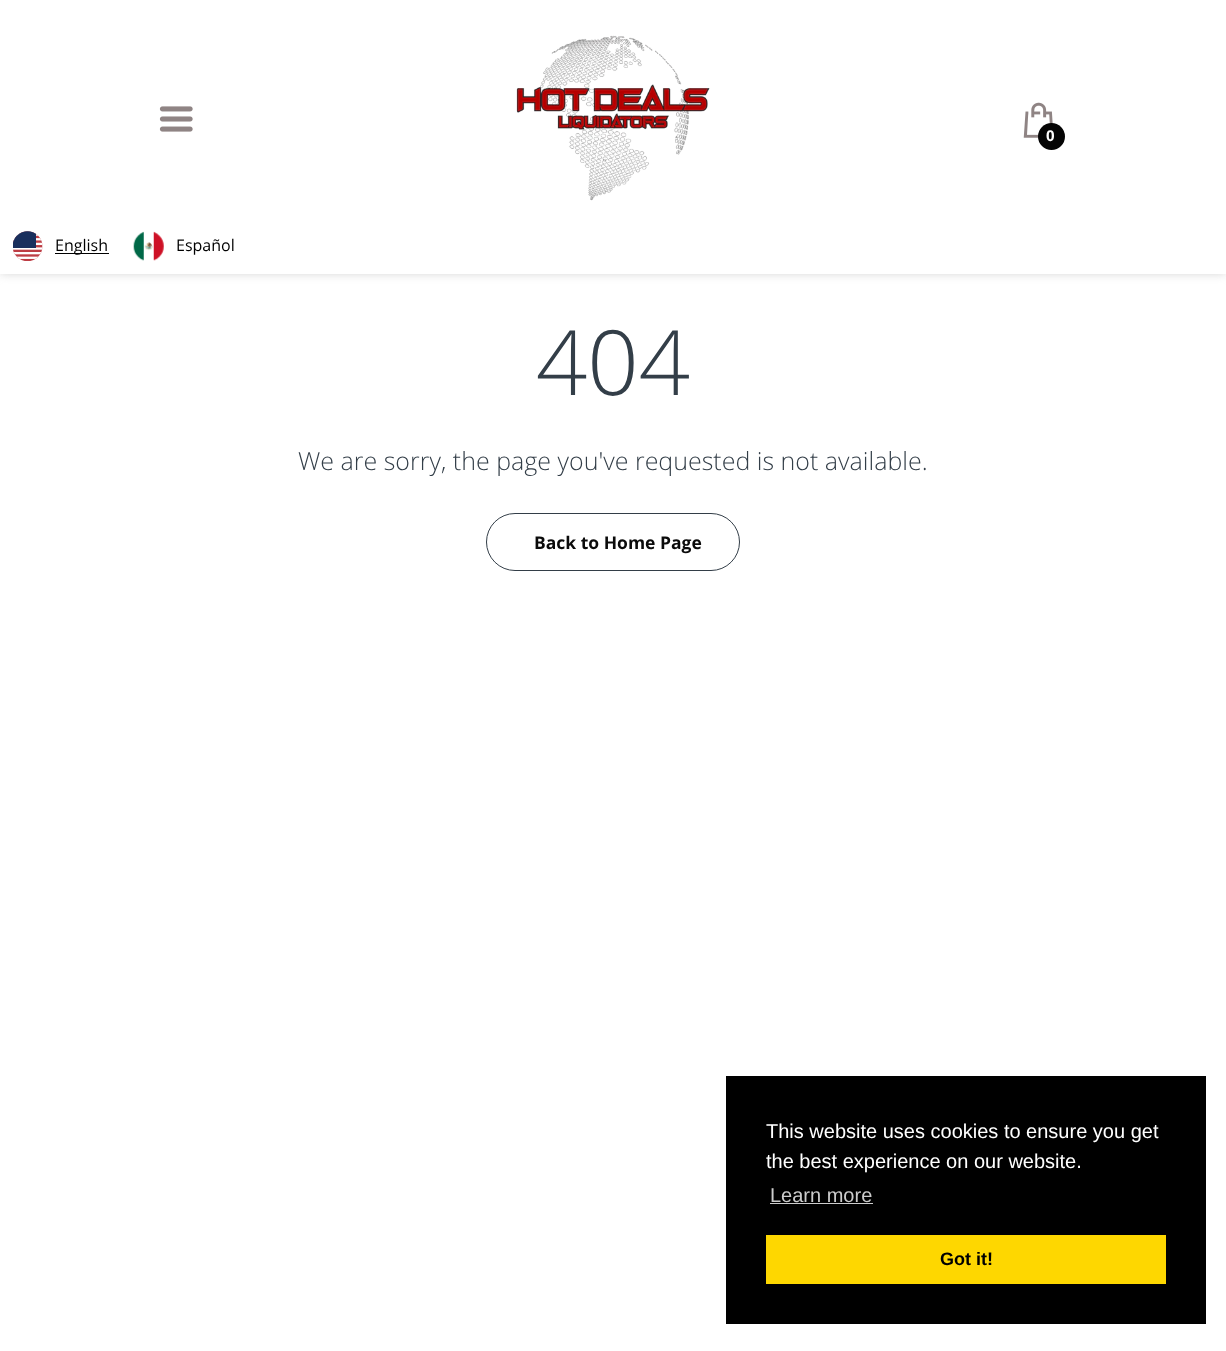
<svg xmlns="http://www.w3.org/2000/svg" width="1226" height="1351">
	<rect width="100%" height="100%" fill="#FFFFFF" />
	<rect x="0" y="0" width="1226" height="274" fill="#C9C9C9" fill-opacity="0.75" filter="blur(5px)" />
	<rect x="0" y="0" width="1226" height="274" fill="#FFFFFF" />
	<image x="159" y="106" width="34" height="26" href="assets/img1.png" />
	<image x="516" y="35" width="194" height="166" href="assets/img2.png" />
	<image x="1023" y="102" width="30" height="36" href="assets/img3.png" />
	<circle cx="1051.5" cy="136.5" r="13.5" fill="#050505" />
	<text x="1046" y="141" font-family="Open Sans" font-size="15" font-weight="700" fill="#FFFFFF">0</text>
	<image x="13" y="231" width="30" height="30" href="assets/img4.png" />
	<rect x="55" y="253" width="54" height="1" fill="#000000" />
	<text x="55" y="251" font-family="Open Sans" font-size="16" fill="#000000">English</text>
	<image x="133" y="231" width="31" height="30" href="assets/img5.png" />
	<text x="176" y="251" font-family="Open Sans" font-size="16" fill="#000000">Español</text>
	<text x="536" y="395" font-family="Open Sans" font-size="90" font-weight="300" fill="#333E48">404</text>
	<text x="298" y="470" font-family="Open Sans" font-size="25" font-weight="300" fill="#333E48">We are sorry, the page you've requested is not available.</text>
	<rect x="486.5" y="513.5" width="253" height="57" rx="28.5" fill="none" stroke="#333E48" />
	<text x="534" y="549" font-family="Open Sans" font-size="17.5" font-weight="700" fill="#0B0B0B">Back to Home Page</text>
	<rect x="726" y="1076" width="480" height="248" fill="#000000" />
	<g font-family="Liberation Sans" font-size="20" fill="#FFFFFF">
		<text x="766" y="1138">This website uses cookies to ensure you get</text>
		<text x="766" y="1168">the best experience on our website.</text>
	</g>
	<text x="770" y="1202" font-family="Liberation Sans" font-size="20" fill="#CCCCCC">Learn more</text>
	<rect x="770" y="1203" width="103" height="1" fill="#CCCCCC" />
	<rect x="766" y="1235" width="400" height="49" fill="#FED700" />
	<text x="940" y="1265" font-family="Liberation Sans" font-size="18" font-weight="700" fill="#000000">Got it!</text>
</svg>
